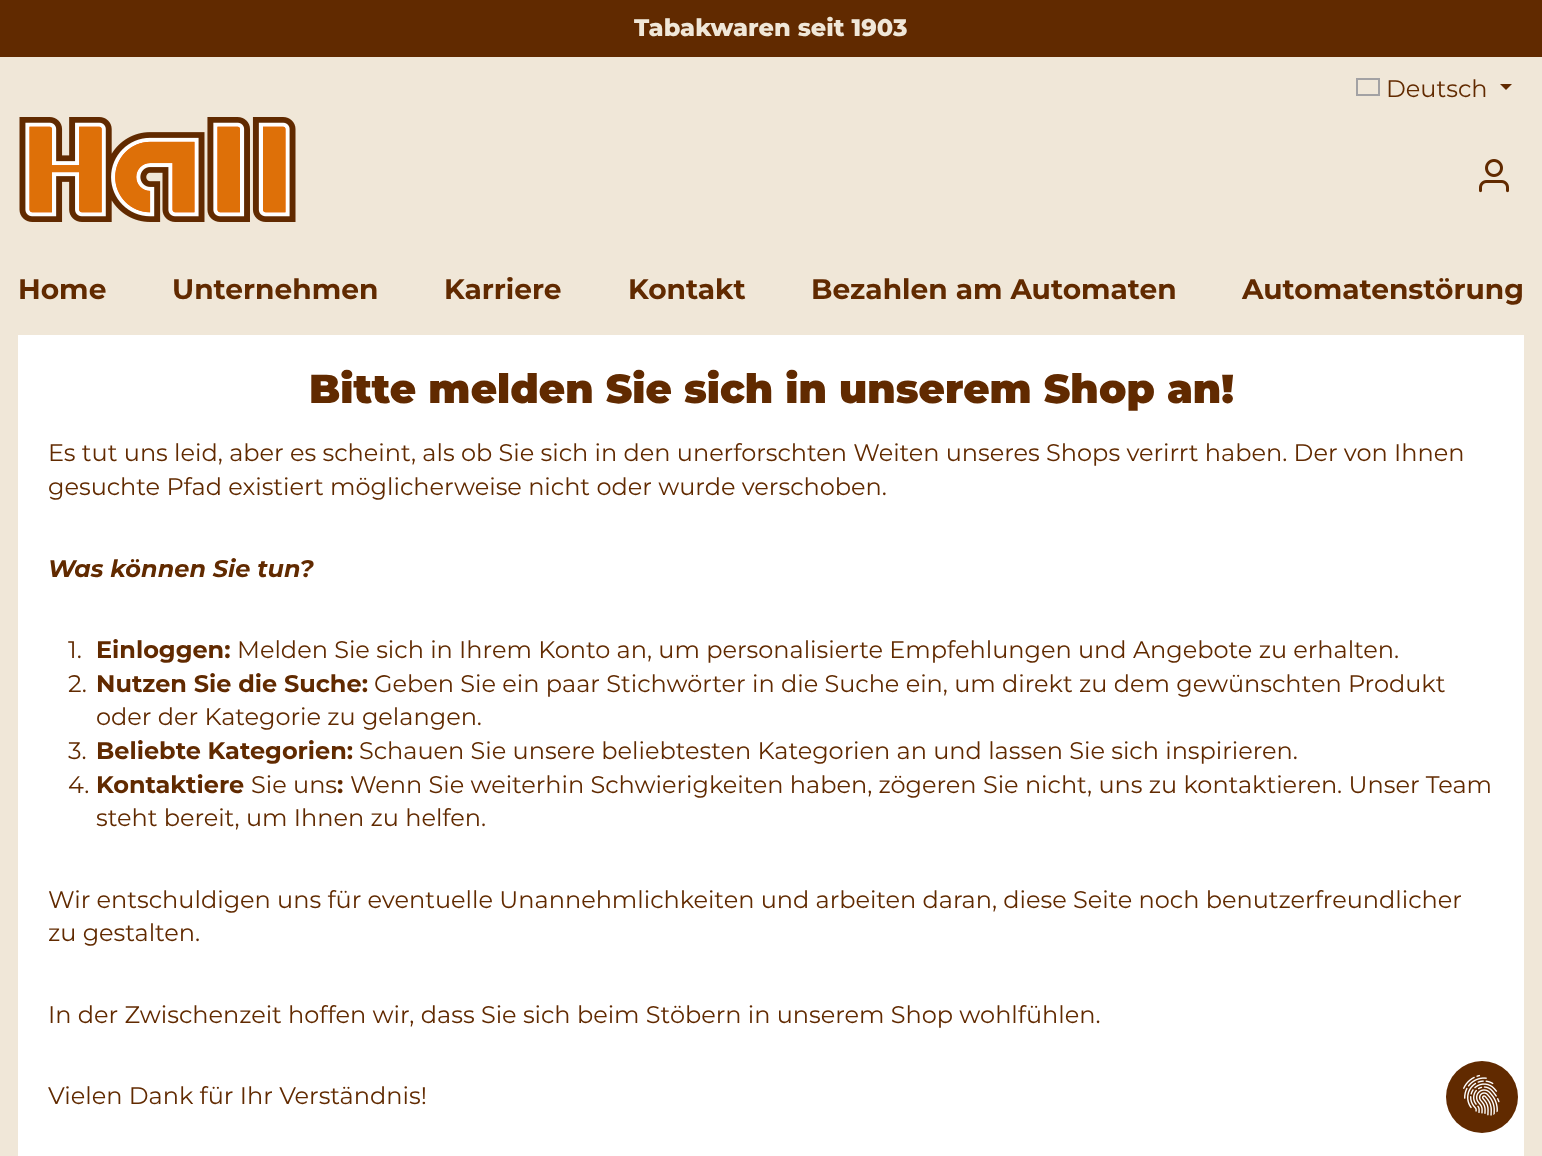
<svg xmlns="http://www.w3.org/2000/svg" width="1542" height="1156">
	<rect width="100%" height="100%" fill="#F0E7D8" />
	<rect x="0" y="0" width="1542" height="57" fill="#612A00" />
	<text x="634" y="36" font-family="Montserrat" font-size="24" font-weight="800" fill="#F0E7D8">Tabakwaren seit 1903</text>
	<rect x="1357" y="79" width="22" height="16" fill="none" stroke="#A3A2A4" stroke-width="2" />
	<text x="1386" y="97" font-family="Montserrat" font-size="24" fill="#612A00">Deutsch</text>
	<path d="M1500 84H1512L1506 90Z" fill="#612A00" />
	<image x="19" y="117" width="277" height="105" href="assets/img1.png" />
	<image x="1479" y="159" width="30" height="34" href="assets/img2.png" />
	<g font-family="Montserrat" font-size="28.1" font-weight="700" fill="#612A00">
		<text x="18" y="299">Home</text>
		<text x="172" y="299">Unternehmen</text>
		<text x="444" y="299">Karriere</text>
		<text x="628" y="299">Kontakt</text>
		<text x="811" y="299">Bezahlen am Automaten</text>
		<text x="1242" y="299">Automatenstörung</text>
	</g>
	<rect x="18" y="335" width="1506" height="821" fill="#FFFFFF" />
	<text x="309" y="403" font-family="Montserrat" font-size="40.45" font-weight="900" fill="#612A00">Bitte melden Sie sich in unserem Shop an!</text>
	<g font-family="Montserrat" font-size="24" fill="#612A00">
		<text x="48" y="461">Es tut uns leid, aber es scheint, als ob Sie sich in den unerforschten Weiten unseres Shops verirrt haben. Der von Ihnen</text>
		<text x="48" y="495">gesuchte Pfad existiert möglicherweise nicht oder wurde verschoben.</text>
	</g>
	<text x="48" y="577" font-family="Montserrat" font-size="24" font-weight="700" font-style="italic" fill="#612A00">Was können Sie tun?</text>
	<text x="68" y="658" font-family="Montserrat" font-size="24" fill="#612A00">1.</text>
	<text x="96" y="658" font-family="Montserrat" font-size="24" font-weight="700" fill="#612A00">Einloggen:</text>
	<g font-family="Montserrat" font-size="24" fill="#612A00">
		<text x="237" y="658">Melden Sie sich in Ihrem Konto an, um personalisierte Empfehlungen und Angebote zu erhalten.</text>
		<text x="68" y="692">2.</text>
	</g>
	<text x="96" y="692" font-family="Montserrat" font-size="24" font-weight="700" fill="#612A00">Nutzen Sie die Suche:</text>
	<g font-family="Montserrat" font-size="24" fill="#612A00">
		<text x="374" y="692">Geben Sie ein paar Stichwörter in die Suche ein, um direkt zu dem gewünschten Produkt</text>
		<text x="96" y="725">oder der Kategorie zu gelangen.</text>
		<text x="68" y="759">3.</text>
	</g>
	<text x="96" y="759" font-family="Montserrat" font-size="24" font-weight="700" fill="#612A00">Beliebte Kategorien:</text>
	<g font-family="Montserrat" font-size="24" fill="#612A00">
		<text x="359" y="759">Schauen Sie unsere beliebtesten Kategorien an und lassen Sie sich inspirieren.</text>
		<text x="68" y="793">4.</text>
	</g>
	<text x="96" y="793" font-family="Montserrat" font-size="24" font-weight="700" fill="#612A00">Kontaktiere</text>
	<text x="251" y="793" font-family="Montserrat" font-size="24" fill="#612A00">Sie uns</text>
	<text x="337" y="793" font-family="Montserrat" font-size="24" font-weight="700" fill="#612A00">:</text>
	<g font-family="Montserrat" font-size="24" fill="#612A00">
		<text x="350" y="793">Wenn Sie weiterhin Schwierigkeiten haben, zögeren Sie nicht, uns zu kontaktieren. Unser Team</text>
		<text x="96" y="826">steht bereit, um Ihnen zu helfen.</text>
		<text x="48" y="908">Wir entschuldigen uns für eventuelle Unannehmlichkeiten und arbeiten daran, diese Seite noch benutzerfreundlicher</text>
		<text x="48" y="941">zu gestalten.</text>
		<text x="48" y="1023">In der Zwischenzeit hoffen wir, dass Sie sich beim Stöbern in unserem Shop wohlfühlen.</text>
		<text x="48" y="1104">Vielen Dank für Ihr Verständnis!</text>
	</g>
	<circle cx="1482" cy="1097" r="36" fill="#612A00" />
	<image x="1463" y="1074" width="37" height="42" href="assets/img3.png" />
</svg>
